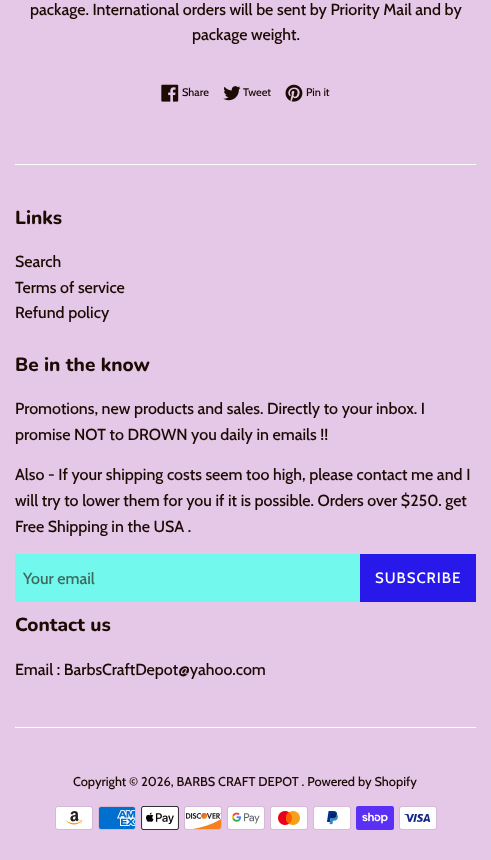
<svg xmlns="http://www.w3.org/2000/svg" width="491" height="860">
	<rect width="100%" height="100%" fill="#E5C7E7" />
	<g font-family="Cabin" font-size="16" font-weight="500" fill="#1C0B03">
		<text x="30" y="15">package. International orders will be sent by Priority Mail and by</text>
		<text x="192" y="40">package weight.</text>
	</g>
	<image x="161" y="84" width="18" height="18" href="assets/img1.png" />
	<text x="182" y="96" font-family="Cabin" font-size="11" font-weight="500" fill="#1C0B03">Share</text>
	<image x="223" y="86" width="18" height="15" href="assets/img2.png" />
	<text x="243" y="96" font-family="Cabin" font-size="11" font-weight="500" fill="#1C0B03">Tweet</text>
	<image x="285" y="84" width="18" height="18" href="assets/img3.png" />
	<text x="306" y="96" font-family="Cabin" font-size="11" font-weight="500" fill="#1C0B03">Pin it</text>
	<rect x="15" y="164" width="461" height="1" fill="#FFFFFF" />
	<text x="15" y="224" font-family="Nunito" font-size="19" font-weight="800" fill="#1C0B03">Links</text>
	<g font-family="Cabin" font-size="16" font-weight="500" fill="#1C0B03">
		<text x="15" y="267">Search</text>
		<text x="15" y="293">Terms of service</text>
		<text x="15" y="318">Refund policy</text>
	</g>
	<text x="15" y="371" font-family="Nunito" font-size="19" font-weight="800" fill="#1C0B03">Be in the know</text>
	<g font-family="Cabin" font-size="16" font-weight="500" fill="#1C0B03">
		<text x="15" y="414">Promotions, new products and sales. Directly to your inbox. I</text>
		<text x="15" y="440">promise NOT to DROWN you daily in emails !!</text>
		<text x="15" y="480">Also - If your shipping costs seem too high, please contact me and I</text>
		<text x="15" y="506">will try to lower them for you if it is possible. Orders over $250. get</text>
		<text x="15" y="532">Free Shipping in the USA .</text>
	</g>
	<rect x="15" y="554" width="345" height="48" fill="#72F8EC" />
	<text x="23" y="584" font-family="Cabin" font-size="16" font-weight="500" fill="#3E6A60">Your email</text>
	<rect x="360" y="554" width="116" height="48" fill="#2818E9" />
	<text x="375" y="583" font-family="Cabin" font-size="15" font-weight="500" letter-spacing="1" fill="#FFFFFF">SUBSCRIBE</text>
	<text x="15" y="631" font-family="Nunito" font-size="19" font-weight="800" fill="#1C0B03">Contact us</text>
	<text x="15" y="675" font-family="Cabin" font-size="16" font-weight="500" fill="#1C0B03">Email : BarbsCraftDepot@yahoo.com</text>
	<rect x="15" y="727" width="461" height="1" fill="#FFFFFF" />
	<text x="73" y="786" font-family="Cabin" font-size="12.8" font-weight="500" fill="#1C0B03">Copyright © 2026, BARBS CRAFT DEPOT . Powered by Shopify</text>
	<image x="55" y="806" width="38" height="24" href="assets/img4.png" />
	<image x="98" y="806" width="38" height="24" href="assets/img5.png" />
	<image x="141" y="806" width="38" height="24" href="assets/img6.png" />
	<image x="184" y="806" width="38" height="24" href="assets/img7.png" />
	<image x="227" y="806" width="38" height="24" href="assets/img8.png" />
	<image x="270" y="806" width="38" height="24" href="assets/img9.png" />
	<image x="313" y="806" width="38" height="24" href="assets/img10.png" />
	<image x="356" y="806" width="38" height="24" href="assets/img11.png" />
	<image x="399" y="806" width="38" height="24" href="assets/img12.png" />
</svg>
